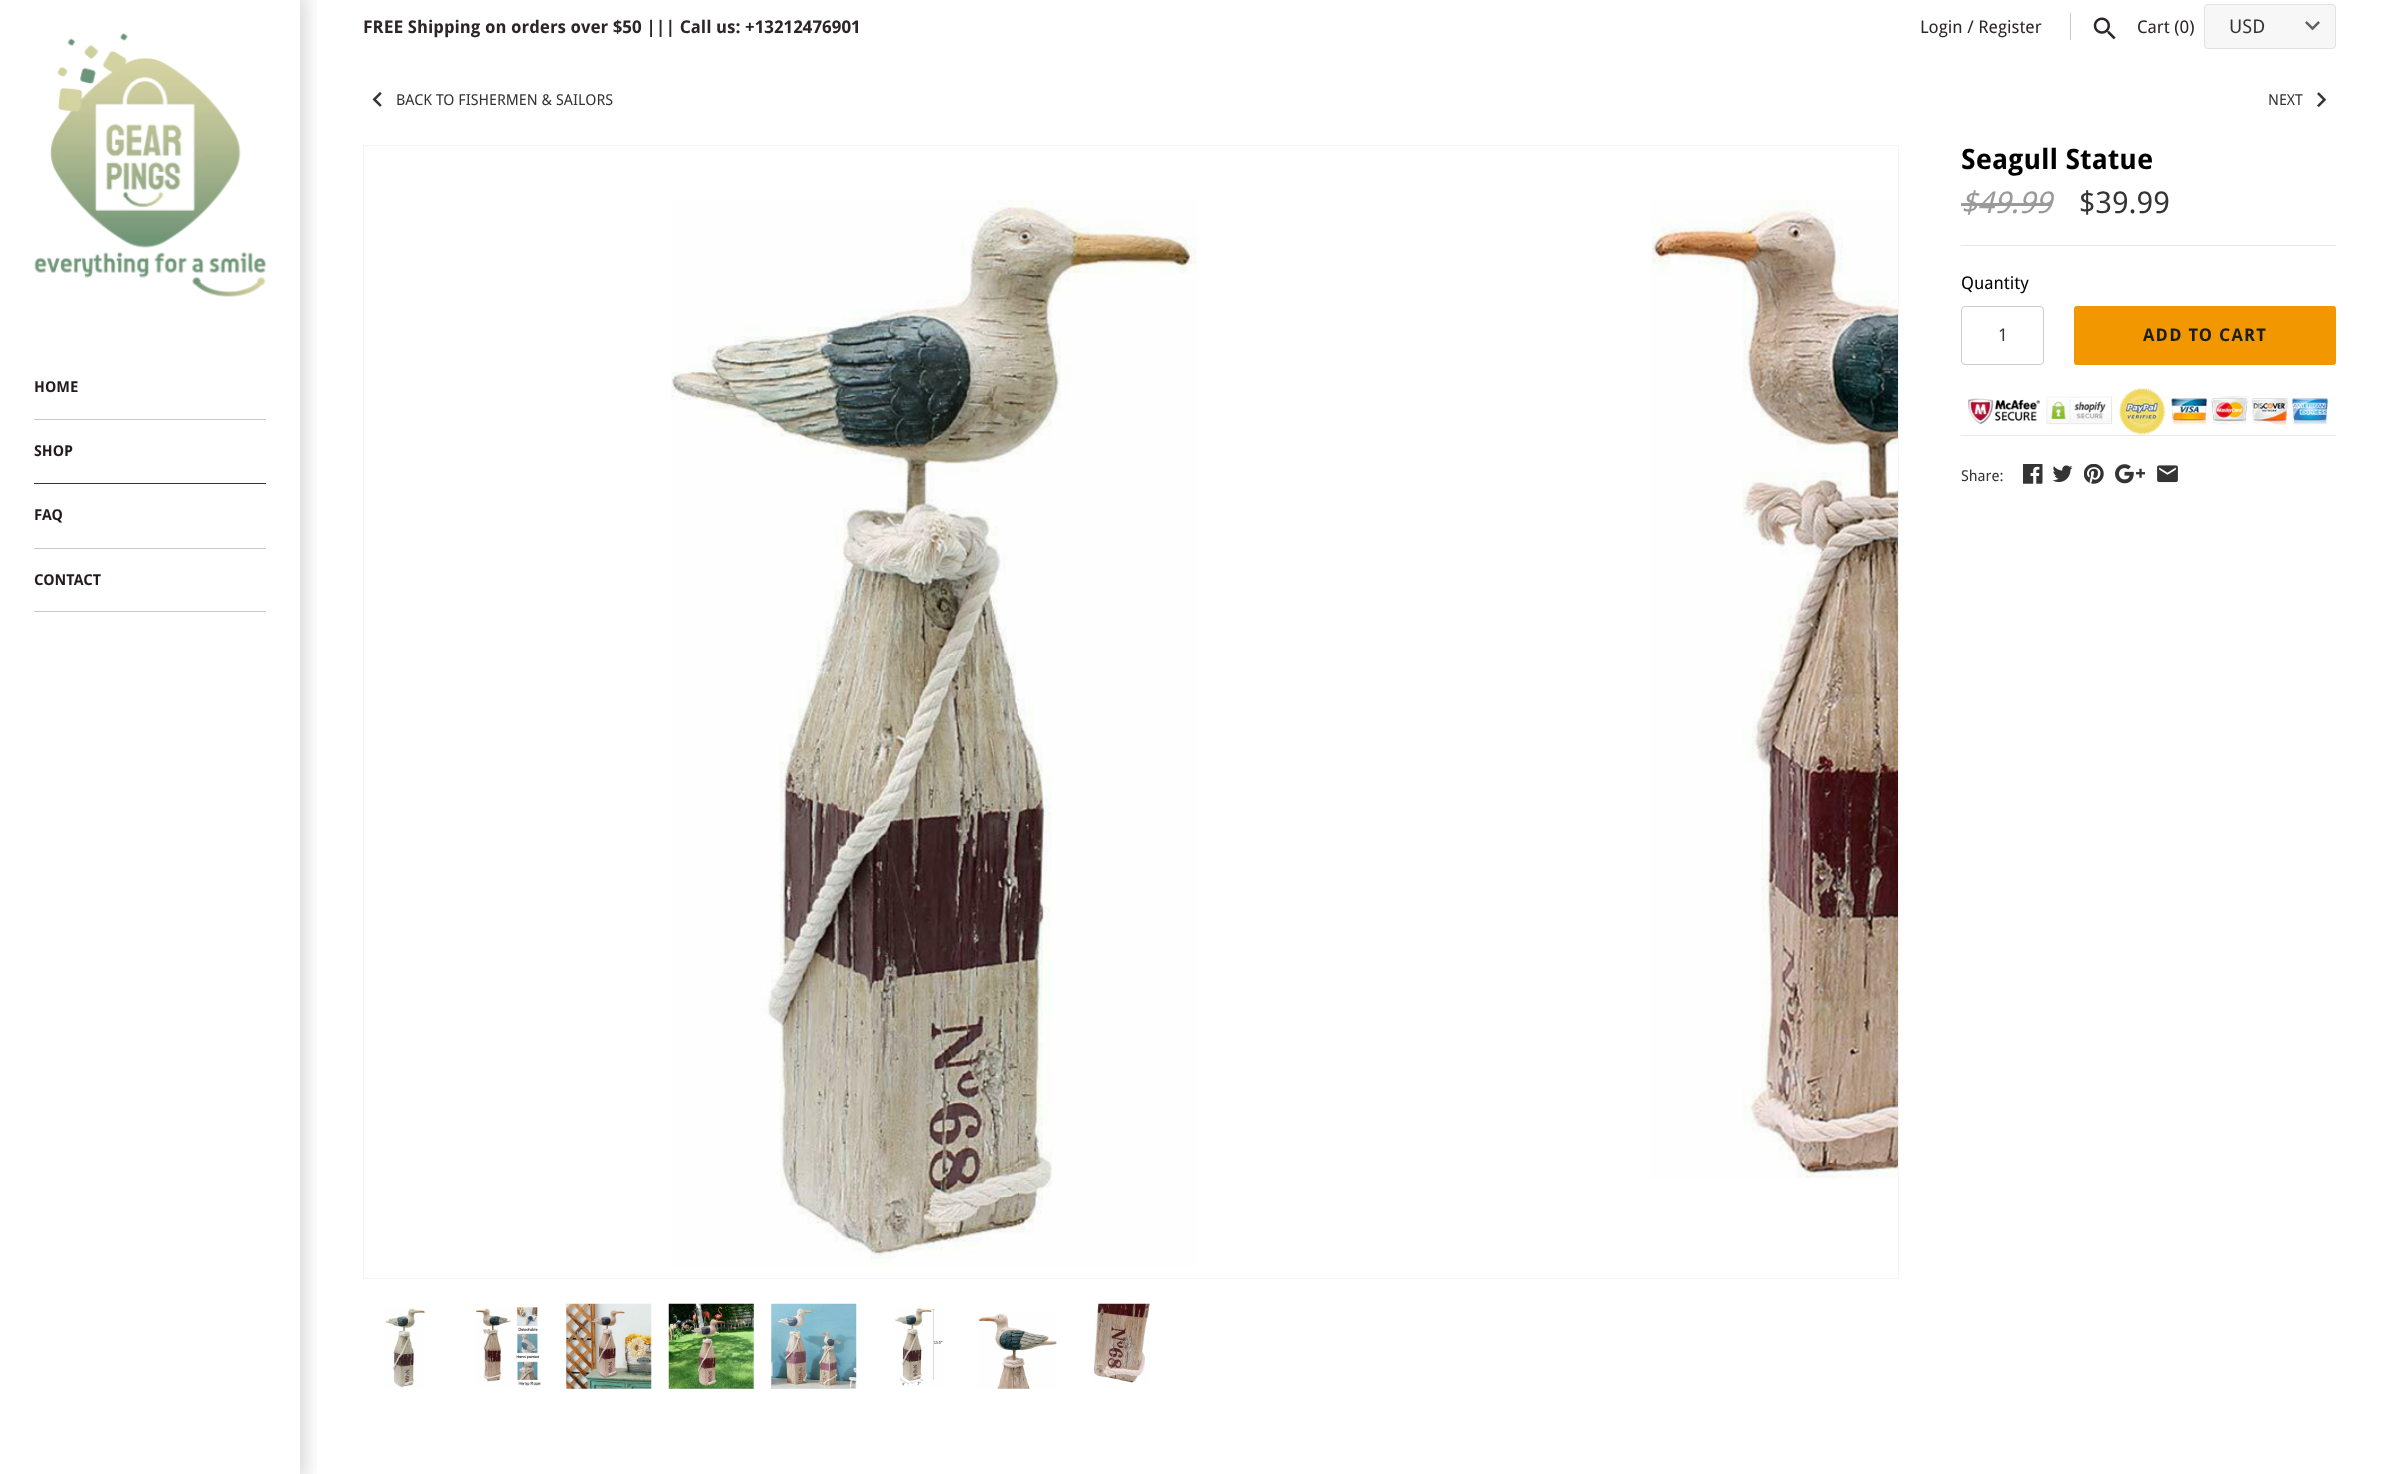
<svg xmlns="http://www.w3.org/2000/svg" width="2398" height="1474">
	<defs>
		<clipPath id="clip1"><rect x="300" y="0" width="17" height="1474" /></clipPath>
	</defs>
	<rect width="100%" height="100%" fill="#FFFFFF" />
	<text x="363" y="33" font-family="Droid Sans" font-size="17.5" font-weight="700" fill="#2E2528">FREE Shipping on orders over $50 ||| Call us: +13212476901</text>
	<text x="1920" y="33" font-family="Droid Sans" font-size="17.5" fill="#2E2528">Login / Register</text>
	<rect x="2070" y="13" width="1" height="27" fill="#CBC9C9" />
	<image x="2093" y="17" width="23" height="23" href="assets/img1.png" />
	<text x="2137" y="33" font-family="Droid Sans" font-size="17.5" fill="#2E2528">Cart (0)</text>
	<rect x="2204" y="4" width="132" height="45" rx="4" fill="#F7F7F7" />
	<image x="2305" y="21" width="15" height="10" href="assets/img2.png" />
	<rect x="2204.5" y="4.5" width="131" height="44" rx="3.5" fill="none" stroke="#E2E2E2" />
	<text x="2229" y="33" font-family="Droid Sans" font-size="19" fill="#343434">USD</text>
	<g clip-path="url(#clip1)">
		<rect x="-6" y="-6" width="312" height="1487" fill="#000000" fill-opacity="0.15" filter="blur(9.5px)" />
	</g>
	<image x="34" y="33" width="232" height="264" href="assets/img3.png" />
	<rect x="34" y="419" width="232" height="1" fill="#C8C6C7" />
	<text x="34" y="392" font-family="Droid Sans" font-size="15" font-weight="700" fill="#241B1E">HOME</text>
	<rect x="34" y="483" width="232" height="1" fill="#3A3235" />
	<text x="34" y="456" font-family="Droid Sans" font-size="15" font-weight="700" fill="#241B1E">SHOP</text>
	<rect x="34" y="548" width="232" height="1" fill="#C8C6C7" />
	<text x="34" y="520" font-family="Droid Sans" font-size="15" font-weight="700" fill="#241B1E">FAQ</text>
	<rect x="34" y="611" width="232" height="1" fill="#C8C6C7" />
	<text x="34" y="585" font-family="Droid Sans" font-size="15" font-weight="700" fill="#241B1E">CONTACT</text>
	<image x="372" y="92" width="10" height="15" href="assets/img4.png" />
	<g font-family="Droid Sans" font-size="15" fill="#343434">
		<text x="396" y="105">BACK TO FISHERMEN &amp; SAILORS</text>
		<text x="2268" y="105">NEXT</text>
	</g>
	<image x="2317" y="92" width="10" height="16" href="assets/img5.png" />
	<rect x="363.5" y="145.5" width="1535" height="1133" fill="none" stroke="#F5F5F5" />
	<image x="671" y="200" width="526" height="1066" href="assets/img6.png" />
	<image x="1651" y="200" width="247" height="979" href="assets/img7.png" />
	<image x="385" y="1308" width="40" height="80" href="assets/img8.png" />
	<image x="476" y="1307" width="65" height="79" href="assets/img9.png" />
	<image x="566" y="1303" width="86" height="86" href="assets/img10.png" />
	<image x="668" y="1303" width="86" height="86" href="assets/img11.png" />
	<image x="771" y="1303" width="86" height="86" href="assets/img12.png" />
	<image x="895" y="1308" width="48" height="78" href="assets/img13.png" />
	<image x="978" y="1313" width="79" height="76" href="assets/img14.png" />
	<image x="1094" y="1303" width="56" height="80" href="assets/img15.png" />
	<text x="1961" y="169" font-family="Droid Sans" font-size="28" font-weight="700" fill="#000000">Seagull Statue</text>
	<text x="1961" y="213" font-family="Droid Sans" font-size="30" font-style="italic" fill="#9A9A9A">$49.99</text>
	<rect x="1961" y="203" width="90" height="3" fill="#9A9A9A" />
	<text x="2079" y="213" font-family="Droid Sans" font-size="30" fill="#343434">$39.99</text>
	<rect x="1961" y="245" width="375" height="1" fill="#E7E7E7" />
	<text x="1961" y="289" font-family="Droid Sans" font-size="17.5" fill="#000000">Quantity</text>
	<rect x="1961.5" y="306.5" width="82" height="58" rx="3.5" fill="none" stroke="#CCCCCC" />
	<text x="1998" y="341" font-family="Droid Sans" font-size="17.5" fill="#343434">1</text>
	<rect x="2074.5" y="306.5" width="261" height="58" rx="2" fill="#F29700" stroke="#F29700" />
	<text x="2143" y="341" font-family="Droid Sans" font-size="17.5" font-weight="700" letter-spacing="1.25" fill="#1B1F1B">ADD TO CART</text>
	<image x="1968" y="387" width="361" height="48" href="assets/img16.png" />
	<rect x="1961" y="435" width="375" height="1" fill="#E7E7E7" />
	<text x="1961" y="481" font-family="Droid Sans" font-size="15" fill="#343434">Share:</text>
	<image x="2023" y="464" width="20" height="20" href="assets/img17.png" />
	<image x="2053" y="465" width="20" height="18" href="assets/img18.png" />
	<image x="2084" y="464" width="20" height="20" href="assets/img19.png" />
	<image x="2115" y="464" width="30" height="20" href="assets/img20.png" />
	<image x="2157" y="465" width="21" height="18" href="assets/img21.png" />
</svg>
